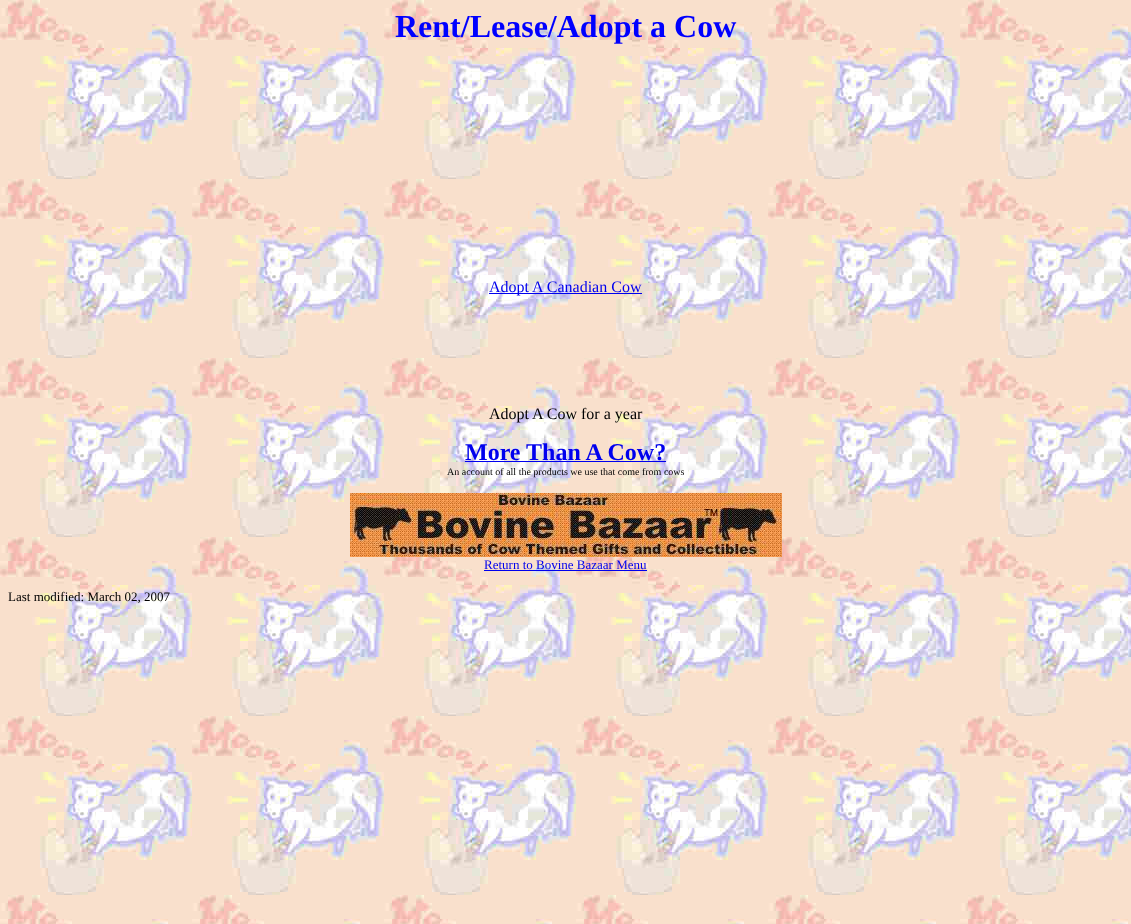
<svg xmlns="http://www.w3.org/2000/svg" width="1131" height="924">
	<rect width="100%" height="100%" fill="#FFFFFF" />
	<image x="0" y="0" width="1131" height="924" href="assets/img1.png" />
	<text x="395" y="37" font-family="Liberation Serif" font-size="32" font-weight="700" fill="#0000FF">Rent/Lease/Adopt a Cow</text>
	<rect x="489" y="293" width="153" height="1" fill="#0000EE" />
	<text x="489" y="292" font-family="Liberation Serif" font-size="16" fill="#0000EE">Adopt A Canadian Cow</text>
	<text x="489" y="419" font-family="Liberation Serif" font-size="16" fill="#000000">Adopt A Cow for a year</text>
	<text x="465" y="460" font-family="Liberation Serif" font-size="24" font-weight="700" fill="#0000EE">More Than A Cow?</text>
	<rect x="465" y="461" width="201" height="1" fill="#0000EE" />
	<text x="447" y="475" font-family="Liberation Serif" font-size="10" fill="#000000">An account of all the products we use that come from cows</text>
	<image x="350" y="493" width="432" height="64" href="assets/img2.png" />
	<text x="484" y="569" font-family="Liberation Serif" font-size="13" fill="#0000EE">Return to Bovine Bazaar Menu</text>
	<rect x="484" y="570" width="163" height="1" fill="#0000EE" />
	<text x="8" y="601" font-family="Liberation Serif" font-size="13" fill="#000000">Last modified: March 02, 2007</text>
</svg>
